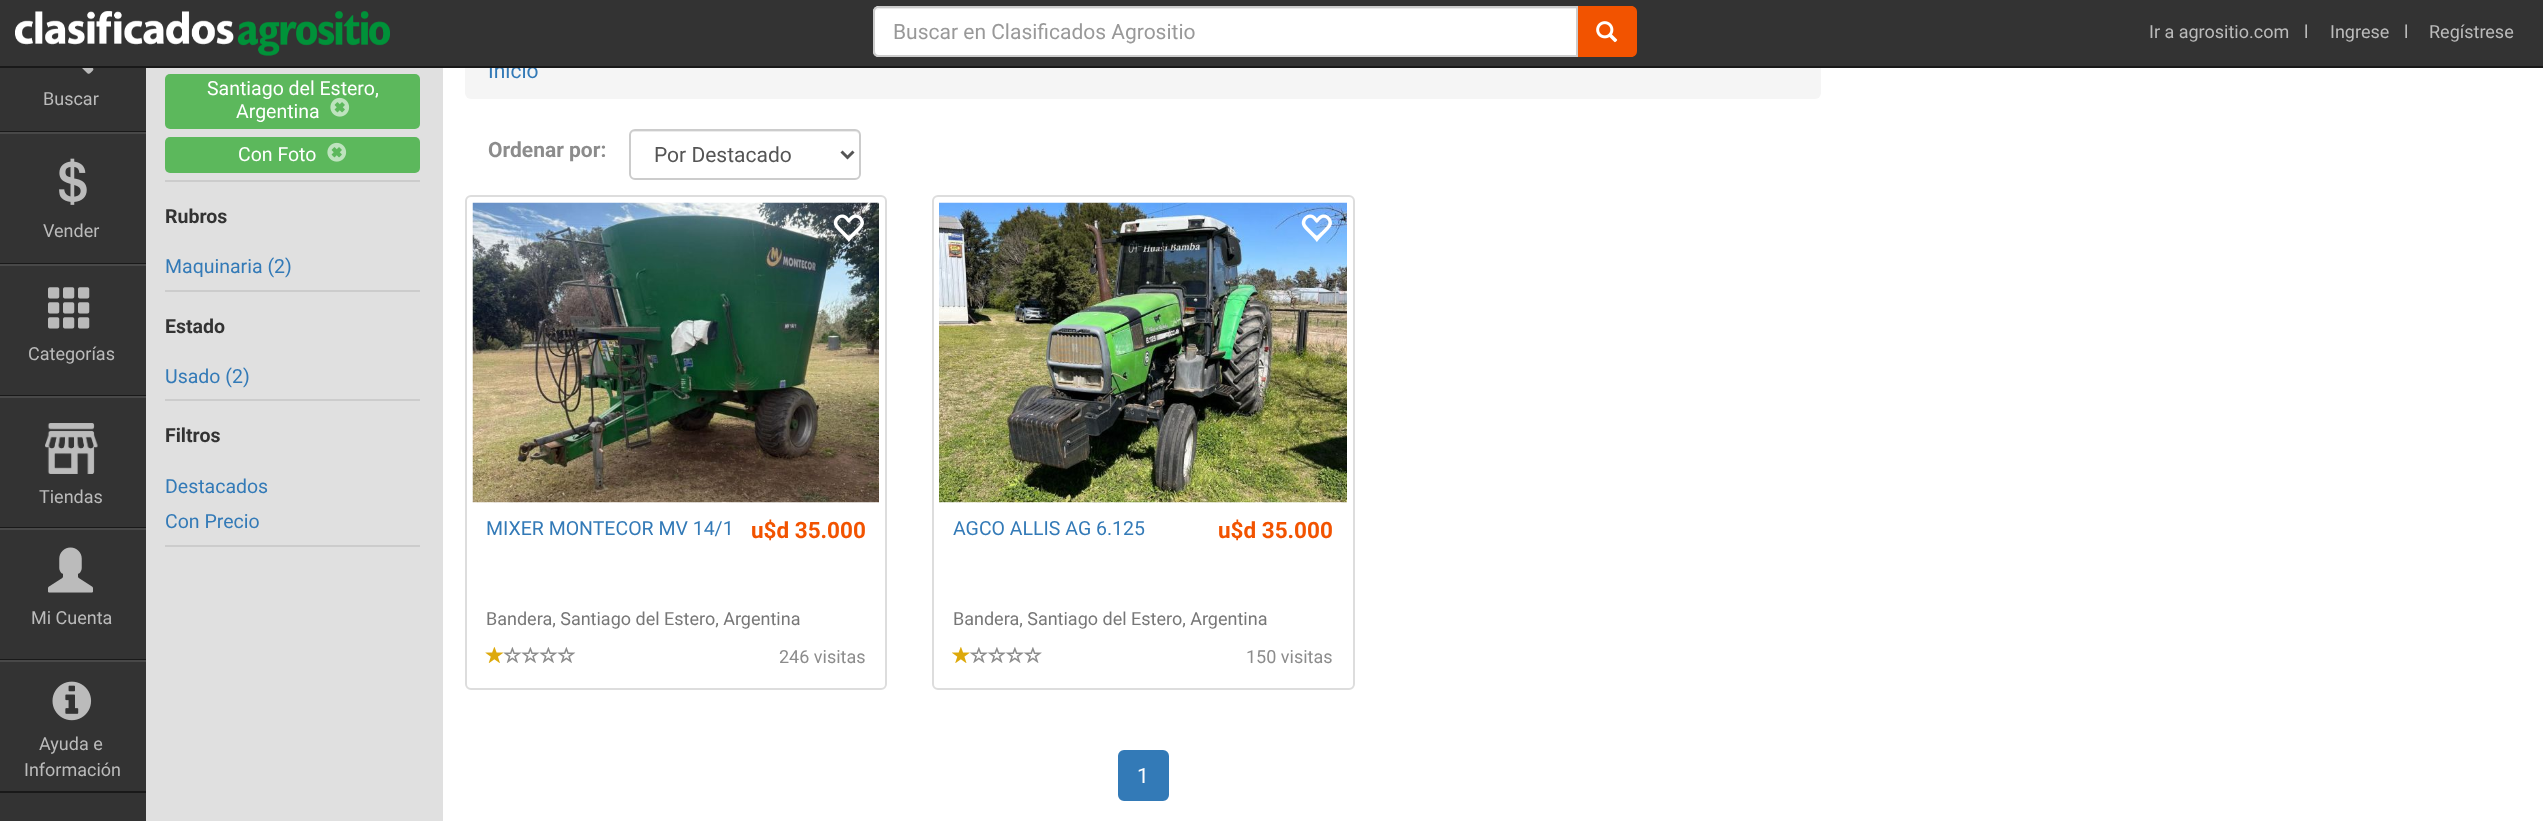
<svg xmlns="http://www.w3.org/2000/svg" width="2543" height="821">
	<rect width="100%" height="100%" fill="#FFFFFF" />
	<rect x="465" y="45" width="1356" height="54" rx="6" fill="#F5F5F5" />
	<text x="488" y="78" font-family="Roboto" font-size="21" fill="#337AB7">Inicio</text>
	<rect x="0" y="0" width="2543" height="66" fill="#333333" />
	<rect x="0" y="66" width="2543" height="2" fill="#191919" />
	<image x="15" y="11" width="375" height="45" href="assets/img1.png" />
	<path d="M879 6H1578V57H879C875.5 57 873 54.5 873 51V12C873 8.5 875.5 6 879 6Z" fill="#FFFFFF" />
	<path d="M879 9H1576V56H1577V8H880C878 8 877 9 876 10Z" fill="#ECECEC" />
	<path d="M879 7H1577V56H879C876 56 874 54 874 51V12C874 9 876 7 879 7Z" fill="none" stroke="#CCCCCC" stroke-width="2" />
	<text x="893" y="39" font-family="Roboto" font-size="21" fill="#999999">Buscar en Clasificados Agrositio</text>
	<path d="M1578 6H1631C1634.5 6 1637 8.5 1637 12V51C1637 54.5 1634.5 57 1631 57H1578Z" fill="#F25300" />
	<path d="M1578 6H1630C1634 6 1636 9 1636 12V51C1636 54 1634 57 1630 57H1578ZM1578 8H1630C1633 8 1635 10 1635 12V51C1635 53 1633 56 1630 56H1578Z" fill="#F25300" fill-rule="evenodd" />
	<image x="1596" y="21" width="22" height="22" href="assets/img2.png" />
	<text x="2149" y="38" font-family="Roboto" font-size="18" fill="#BBBBBB">Ir a agrositio.com</text>
	<text x="2304" y="38" font-family="Roboto" font-size="18" letter-spacing="6" fill="#BBBBBB">l</text>
	<text x="2330" y="38" font-family="Roboto" font-size="18" fill="#BBBBBB">Ingrese</text>
	<text x="2404" y="38" font-family="Roboto" font-size="18" letter-spacing="6" fill="#BBBBBB">l</text>
	<text x="2429" y="38" font-family="Roboto" font-size="18" fill="#BBBBBB">Regístrese</text>
	<rect x="0" y="68" width="146" height="753" fill="#333333" />
	<rect x="0" y="131" width="146" height="1" fill="#191919" />
	<image x="82" y="68" width="12" height="6" href="assets/img3.png" />
	<text x="43" y="105" font-family="Roboto" font-size="18" fill="#BBBBBB">Buscar</text>
	<rect x="0" y="132" width="146" height="2" fill="#484848" />
	<rect x="0" y="263" width="146" height="1" fill="#191919" />
	<image x="59" y="158" width="28" height="47" href="assets/img4.png" />
	<text x="43" y="237" font-family="Roboto" font-size="18" fill="#BBBBBB">Vender</text>
	<rect x="0" y="264" width="146" height="2" fill="#484848" />
	<rect x="0" y="395" width="146" height="1" fill="#191919" />
	<image x="48" y="287" width="42" height="42" href="assets/img5.png" />
	<text x="28" y="360" font-family="Roboto" font-size="18" fill="#BBBBBB">Categorías</text>
	<rect x="0" y="396" width="146" height="2" fill="#484848" />
	<rect x="0" y="527" width="146" height="1" fill="#191919" />
	<image x="45" y="423" width="53" height="51" href="assets/img6.png" />
	<text x="39" y="503" font-family="Roboto" font-size="18" fill="#BBBBBB">Tiendas</text>
	<rect x="0" y="528" width="146" height="2" fill="#484848" />
	<rect x="0" y="659" width="146" height="1" fill="#191919" />
	<image x="48" y="547" width="45" height="46" href="assets/img7.png" />
	<text x="31" y="624" font-family="Roboto" font-size="18" fill="#BBBBBB">Mi Cuenta</text>
	<rect x="0" y="660" width="146" height="2" fill="#484848" />
	<rect x="0" y="791" width="146" height="2" fill="#191919" />
	<image x="52" y="681" width="40" height="40" href="assets/img8.png" />
	<g font-family="Roboto" font-size="18" fill="#BBBBBB">
		<text x="39" y="750">Ayuda e</text>
		<text x="24" y="776">Información</text>
	</g>
	<rect x="146" y="68" width="297" height="753" fill="#E0E0E0" />
	<rect x="165" y="74" width="255" height="55" rx="5" fill="#5CB85C" />
	<g font-family="Roboto" font-size="19.5" fill="#FFFFFF">
		<text x="207" y="95">Santiago del Estero,</text>
		<text x="236" y="118">Argentina</text>
	</g>
	<image x="330" y="97" width="20" height="20" href="assets/img9.png" />
	<rect x="165" y="137" width="255" height="36" rx="5" fill="#5CB85C" />
	<text x="238" y="161" font-family="Roboto" font-size="19.5" fill="#FFFFFF">Con Foto</text>
	<image x="327" y="142" width="20" height="20" href="assets/img9.png" />
	<rect x="165" y="180" width="255" height="2" fill="#CCCCCC" />
	<text x="165" y="223" font-family="Roboto" font-size="19.5" font-weight="700" fill="#333333">Rubros</text>
	<text x="165" y="273" font-family="Roboto" font-size="19.5" fill="#337AB7">Maquinaria (2)</text>
	<rect x="165" y="290" width="255" height="2" fill="#CCCCCC" />
	<text x="165" y="333" font-family="Roboto" font-size="19.5" font-weight="700" fill="#333333">Estado</text>
	<text x="165" y="383" font-family="Roboto" font-size="19.5" fill="#337AB7">Usado (2)</text>
	<rect x="165" y="399" width="255" height="2" fill="#CCCCCC" />
	<text x="165" y="442" font-family="Roboto" font-size="19.5" font-weight="700" fill="#333333">Filtros</text>
	<g font-family="Roboto" font-size="19.5" fill="#337AB7">
		<text x="165" y="493">Destacados</text>
		<text x="165" y="528">Con Precio</text>
	</g>
	<rect x="165" y="545" width="255" height="2" fill="#CCCCCC" />
	<text x="488" y="157" font-family="Roboto" font-size="21" font-weight="700" fill="#8C8C8C">Ordenar por:</text>
	<path d="M634 132H855C857 132 860 134 860 136C860 133 858 131 855 131H635C632 131 630 133 630 136C630 134 632 132 634 132Z" fill="#ECECEC" />
	<rect x="630" y="130" width="230" height="49" rx="5" fill="none" stroke="#CCCCCC" stroke-width="2" />
	<path d="M841.5 151.5L847.5 157.5L853.5 151.5" fill="none" stroke="#555555" stroke-width="3" />
	<text x="654" y="162" font-family="Roboto" font-size="21" fill="#555555">Por Destacado</text>
	<rect x="466" y="196" width="420" height="493" rx="5" fill="none" stroke="#DDDDDD" stroke-width="2" />
	<image x="472" y="202" width="407" height="301" href="assets/img10.png" />
	<image x="833" y="214" width="31" height="28" href="assets/img11.png" />
	<text x="486" y="535" font-family="Roboto" font-size="19.5" fill="#337AB7">MIXER MONTECOR MV 14/1</text>
	<text x="751" y="538" font-family="Roboto" font-size="22.5" font-weight="700" fill="#F25300">u$d 35.000</text>
	<text x="486" y="625" font-family="Roboto" font-size="18" fill="#777777">Bandera, Santiago del Estero, Argentina</text>
	<image x="485" y="647" width="19" height="16" href="assets/img12.png" />
	<image x="503" y="647" width="19" height="16" href="assets/img13.png" />
	<image x="521" y="647" width="19" height="16" href="assets/img14.png" />
	<image x="539" y="647" width="19" height="16" href="assets/img14.png" />
	<image x="557" y="647" width="19" height="16" href="assets/img14.png" />
	<text x="779" y="663" font-family="Roboto" font-size="18" fill="#8C8C8C">246 visitas</text>
	<rect x="933" y="196" width="421" height="493" rx="5" fill="none" stroke="#DDDDDD" stroke-width="2" />
	<image x="939" y="202" width="408" height="301" href="assets/img15.png" />
	<image x="1301" y="214" width="31" height="28" href="assets/img16.png" />
	<text x="953" y="535" font-family="Roboto" font-size="19.5" fill="#337AB7">AGCO ALLIS AG 6.125</text>
	<text x="1218" y="538" font-family="Roboto" font-size="22.5" font-weight="700" fill="#F25300">u$d 35.000</text>
	<text x="953" y="625" font-family="Roboto" font-size="18" fill="#777777">Bandera, Santiago del Estero, Argentina</text>
	<image x="952" y="647" width="18" height="16" href="assets/img17.png" />
	<image x="970" y="647" width="18" height="16" href="assets/img18.png" />
	<image x="988" y="647" width="18" height="16" href="assets/img18.png" />
	<image x="1006" y="647" width="18" height="16" href="assets/img18.png" />
	<image x="1024" y="647" width="18" height="16" href="assets/img18.png" />
	<text x="1246" y="663" font-family="Roboto" font-size="18" fill="#8C8C8C">150 visitas</text>
	<rect x="1119" y="751" width="49" height="49" rx="5" fill="#337AB7" stroke="#337AB7" stroke-width="2" />
	<text x="1137" y="783" font-family="Roboto" font-size="21" fill="#FFFFFF">1</text>
</svg>
